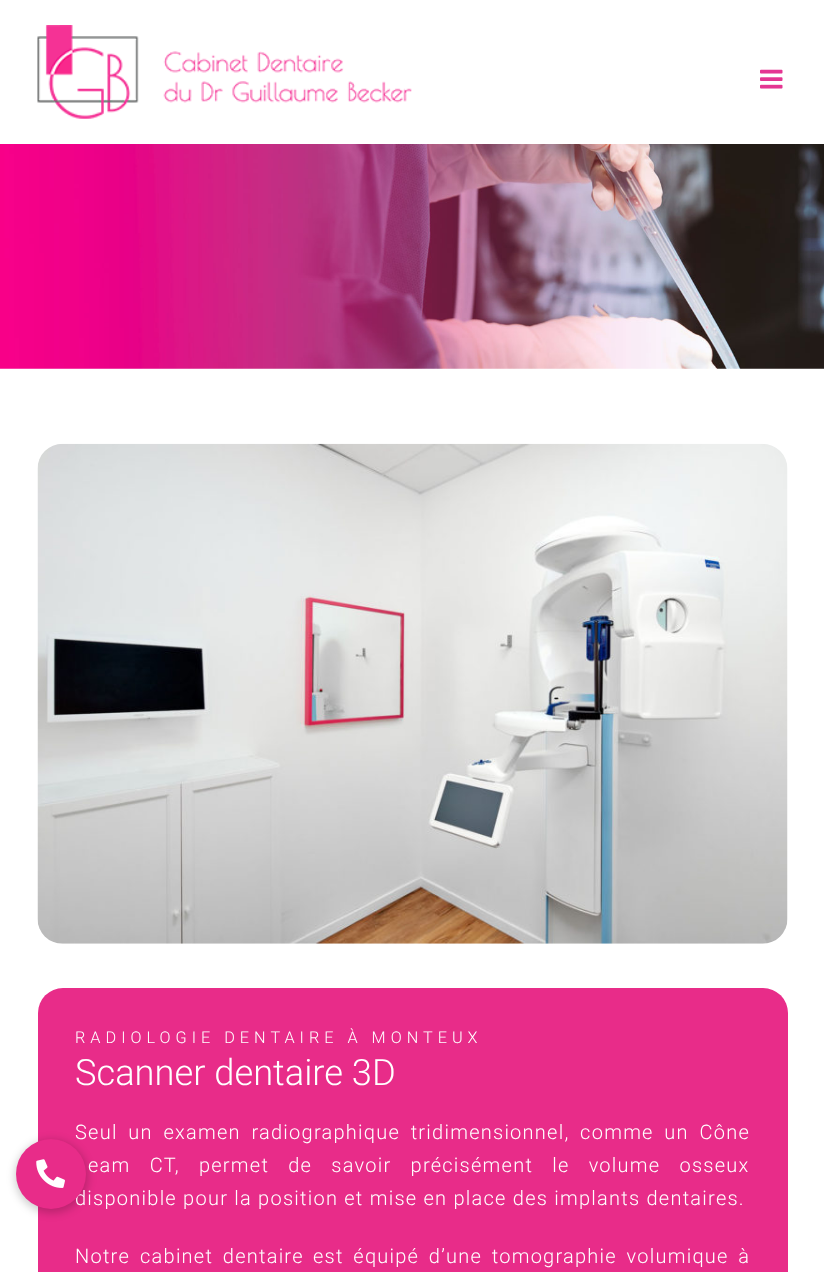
<svg xmlns="http://www.w3.org/2000/svg" width="824" height="1272">
	<rect width="100%" height="100%" fill="#FFFFFF" />
	<rect x="38" y="988" width="750" height="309" rx="25" fill="#E82C89" />
	<rect x="15" y="1140" width="73" height="73" rx="36.5" fill="#000000" fill-opacity="0.2" filter="blur(4px)" />
	<g font-family="Roboto" font-size="20" font-weight="300" letter-spacing="1.25" fill="#FFFFFF">
		<text x="75" y="1139" word-spacing="4.5">Seul un examen radiographique tridimensionnel, comme un Cône</text>
		<text x="75" y="1205">disponible pour la position et mise en place des implants dentaires.</text>
	</g>
	<circle cx="51" cy="1174" r="35" fill="#E82C89" />
	<image x="36" y="1159" width="29" height="29" href="assets/img1.png" />
	<image x="37" y="25" width="375" height="94" href="assets/img2.png" />
	<image x="760" y="69" width="23" height="20" href="assets/img3.png" />
	<image x="0" y="144" width="824" height="225" href="assets/img4.png" />
	<image x="37" y="443" width="751" height="501" href="assets/img5.png" />
	<text x="75" y="1043" font-family="Roboto" font-size="16.25" font-weight="300" letter-spacing="5" fill="#FFFFFF">RADIOLOGIE DENTAIRE À MONTEUX</text>
	<text x="75" y="1085" font-family="Roboto" font-size="36.25" font-weight="300" fill="#FFFFFF">Scanner dentaire 3D</text>
	<g font-family="Roboto" font-size="20" font-weight="300" letter-spacing="1.25" fill="#FFFFFF">
		<text x="88" y="1172" word-spacing="13">eam CT, permet de savoir précisément le volume osseux</text>
		<text x="75" y="1263">Notre</text>
		<text x="140" y="1263" word-spacing="3.5">cabinet dentaire</text>
		<text x="313" y="1263" word-spacing="3.5">est équipé d’une tomographie volumique à</text>
	</g>
</svg>
